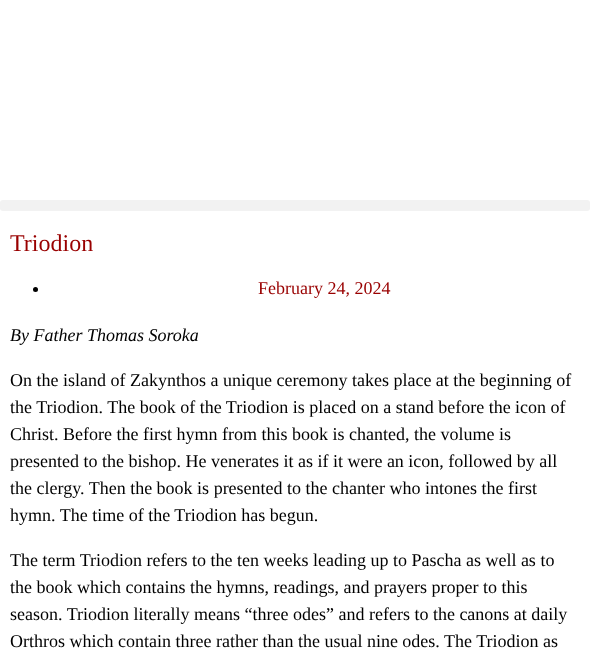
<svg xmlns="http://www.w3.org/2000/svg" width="590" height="649">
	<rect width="100%" height="100%" fill="#FFFFFF" />
	<rect x="0" y="200" width="590" height="11" rx="3" fill="#F2F2F2" />
	<text x="10" y="251" font-family="Liberation Serif" font-size="24" fill="#990000">Triodion</text>
	<circle cx="35.5" cy="289.5" r="2.5" fill="#000000" />
	<text x="258" y="294" font-family="Liberation Serif" font-size="18" fill="#990000">February 24, 2024</text>
	<text x="10" y="341" font-family="Liberation Serif" font-size="18" font-style="italic" fill="#000000">By Father Thomas Soroka</text>
	<g font-family="Liberation Serif" font-size="18" fill="#000000">
		<text x="10" y="386">On the island of Zakynthos a unique ceremony takes place at the beginning of</text>
		<text x="10" y="413">the Triodion. The book of the Triodion is placed on a stand before the icon of</text>
		<text x="10" y="440">Christ. Before the first hymn from this book is chanted, the volume is</text>
		<text x="10" y="467">presented to the bishop. He venerates it as if it were an icon, followed by all</text>
		<text x="10" y="494">the clergy. Then the book is presented to the chanter who intones the first</text>
		<text x="10" y="521">hymn. The time of the Triodion has begun.</text>
		<text x="10" y="566">The term Triodion refers to the ten weeks leading up to Pascha as well as to</text>
		<text x="10" y="593">the book which contains the hymns, readings, and prayers proper to this</text>
		<text x="10" y="620">season. Triodion literally means “three odes” and refers to the canons at daily</text>
		<text x="10" y="647">Orthros which contain three rather than the usual nine odes. The Triodion as</text>
	</g>
</svg>
